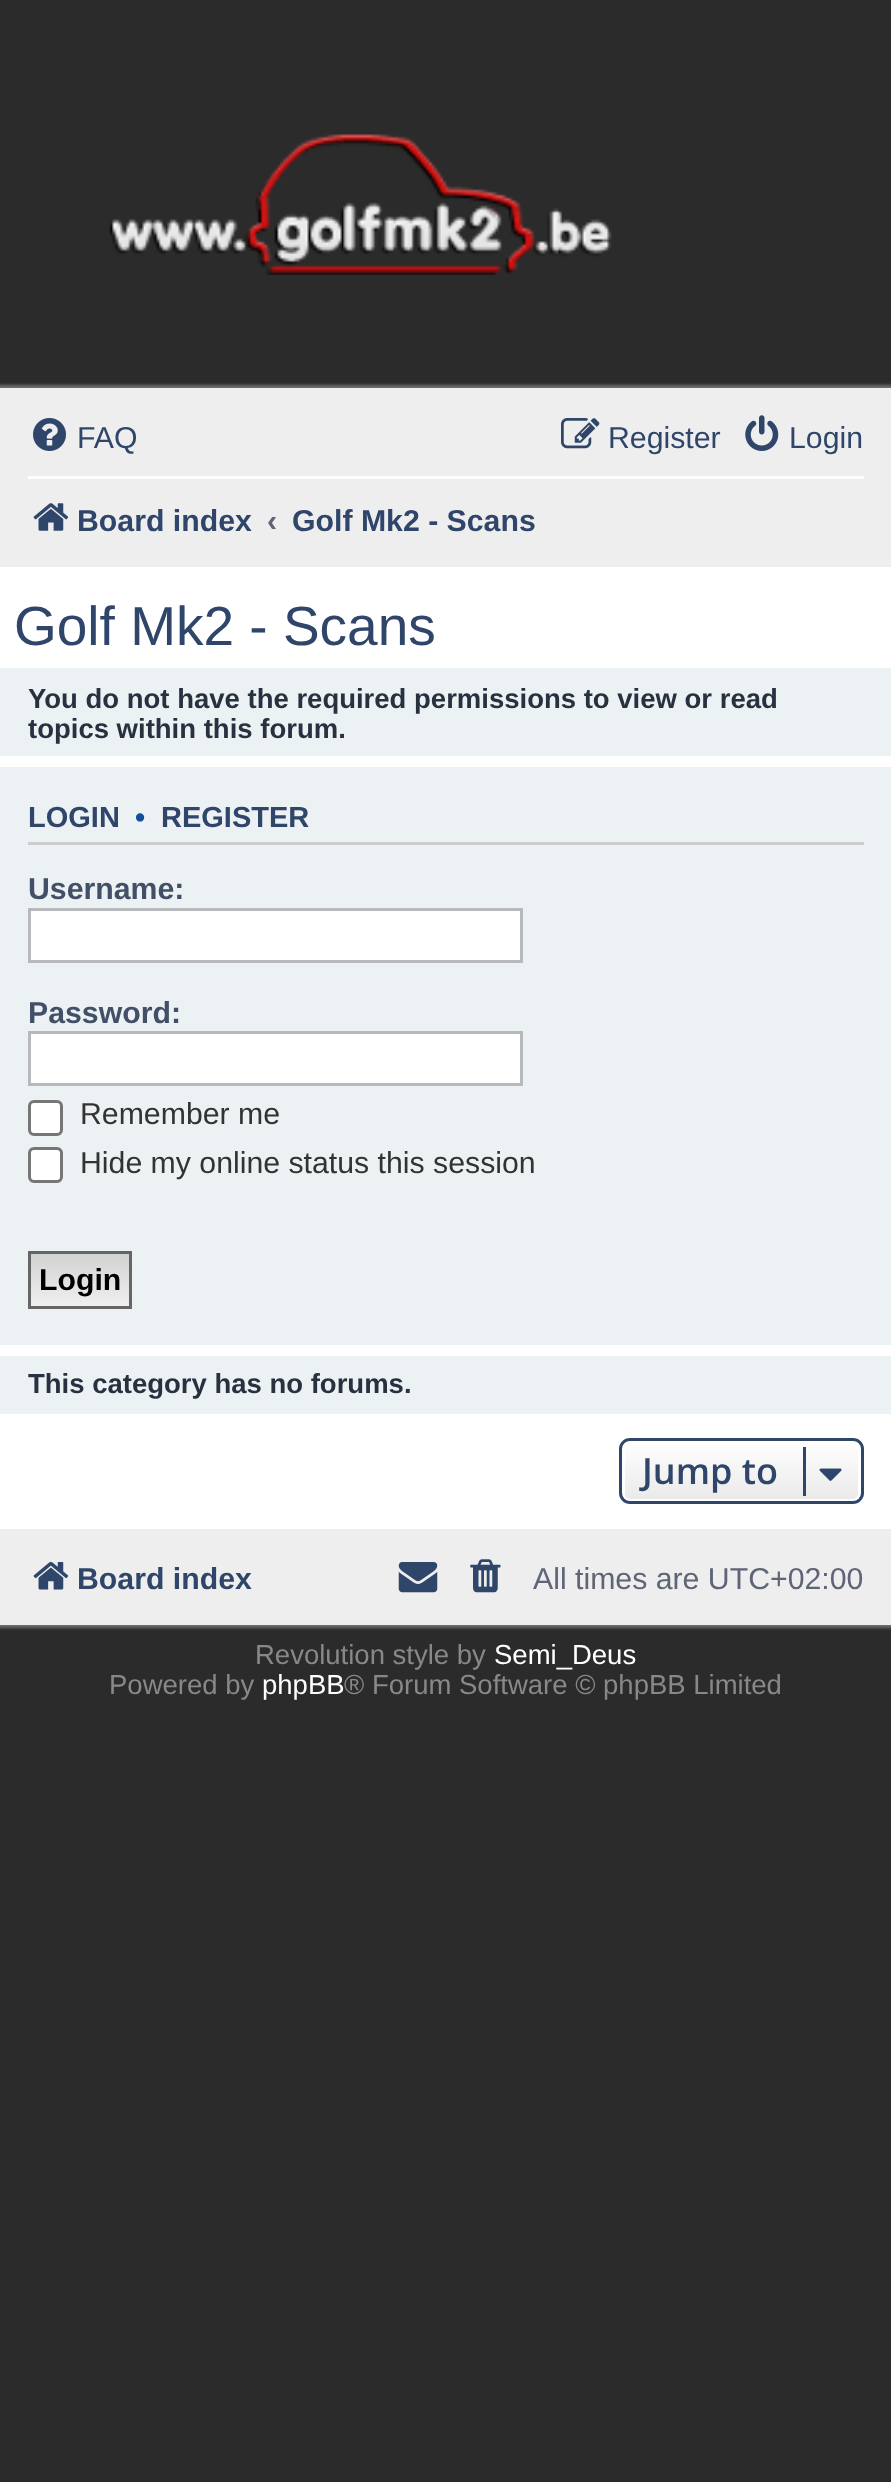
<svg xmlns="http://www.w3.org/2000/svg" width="891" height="2482">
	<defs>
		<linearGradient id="g1" gradientUnits="userSpaceOnUse" x1="80" y1="1254" x2="80" y2="1306"><stop offset="0" stop-color="#D2D2D2" /><stop offset="1" stop-color="#EFEFEF" /></linearGradient>
		<clipPath id="clip1"><rect x="619" y="1438" width="245" height="66" rx="11" /></clipPath>
		<linearGradient id="g2" gradientUnits="userSpaceOnUse" x1="741" y1="1441" x2="741" y2="1502"><stop offset="0" stop-color="#FFFFFF" /><stop offset="1" stop-color="#E9E9E9" /></linearGradient>
	</defs>
	<rect width="100%" height="100%" fill="#2B2B2B" />
	<image x="109" y="134" width="503" height="141" href="assets/img1.png" />
	<rect x="-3" y="385" width="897" height="1243" fill="#6E6E6E" filter="blur(1.5px)" />
	<rect x="0" y="567" width="891" height="962" fill="#FFFFFF" />
	<rect x="0" y="388" width="891" height="179" fill="#EEEEEE" />
	<image x="33" y="418" width="33" height="33" href="assets/img2.png" />
	<text x="77" y="448" font-family="Liberation Sans" font-size="30.25" fill="#2F466A">FAQ</text>
	<image x="561" y="418" width="39" height="31" href="assets/img3.png" />
	<text x="608" y="448" font-family="Liberation Sans" font-size="30.25" fill="#2F466A">Register</text>
	<image x="745" y="415" width="34" height="36" href="assets/img4.png" />
	<text x="789" y="448" font-family="Liberation Sans" font-size="30.25" fill="#2F466A">Login</text>
	<rect x="28" y="476" width="836" height="3" fill="#FFFFFF" />
	<image x="33" y="503" width="36" height="28" href="assets/img5.png" />
	<text x="77" y="531" font-family="Liberation Sans" font-size="30.25" font-weight="700" fill="#2F466A">Board index</text>
	<text x="267" y="531" font-family="Liberation Sans" font-size="30.25" font-weight="700" fill="#5F6476">‹</text>
	<text x="292" y="531" font-family="Liberation Sans" font-size="30.25" font-weight="700" fill="#2F466A">Golf Mk2 - Scans</text>
	<text x="14" y="645" font-family="Liberation Sans" font-size="55" fill="#2F466A">Golf Mk2 - Scans</text>
	<rect x="0" y="668" width="891" height="88" fill="#ECF1F3" />
	<g font-family="Liberation Sans" font-size="27.5" font-weight="700" fill="#28313F">
		<text x="28" y="708">You do not have the required permissions to view or read</text>
		<text x="28" y="738">topics within this forum.</text>
	</g>
	<rect x="0" y="767" width="891" height="578" fill="#ECF1F3" />
	<rect x="28" y="842" width="836" height="3" fill="#CCCCCC" />
	<text x="28" y="827" font-family="Liberation Sans" font-size="29" font-weight="700" fill="#2F466A">LOGIN</text>
	<text x="135" y="827" font-family="Liberation Sans" font-size="29" font-weight="700" fill="#115098">•</text>
	<text x="161" y="827" font-family="Liberation Sans" font-size="29" font-weight="700" fill="#2F466A">REGISTER</text>
	<text x="28" y="899" font-family="Liberation Sans" font-size="30.25" font-weight="700" fill="#425067">Username:</text>
	<rect x="29.5" y="909.5" width="492" height="52" fill="#FFFFFF" stroke="#B7B9BD" stroke-width="3" />
	<text x="28" y="1023" font-family="Liberation Sans" font-size="30.25" font-weight="700" fill="#425067">Password:</text>
	<rect x="29.5" y="1032.5" width="492" height="52" fill="#FFFFFF" stroke="#B7B9BD" stroke-width="3" />
	<rect x="29.5" y="1101.5" width="32" height="33" rx="4.5" fill="#FFFFFF" stroke="#767676" stroke-width="3" />
	<text x="80" y="1124" font-family="Liberation Sans" font-size="30.25" fill="#333333">Remember me</text>
	<rect x="29.5" y="1148.5" width="32" height="33" rx="4.5" fill="#FFFFFF" stroke="#767676" stroke-width="3" />
	<text x="80" y="1173" font-family="Liberation Sans" font-size="30.25" fill="#333333">Hide my online status this session</text>
	<rect x="31" y="1254" width="98" height="52" fill="url(#g1)" />
	<rect x="29.5" y="1252.5" width="101" height="55" fill="none" stroke="#666666" stroke-width="3" />
	<text x="39" y="1290" font-family="Liberation Sans" font-size="30.25" font-weight="700" fill="#000000">Login</text>
	<rect x="0" y="1356" width="891" height="58" fill="#ECF1F3" />
	<text x="28" y="1393" font-family="Liberation Sans" font-size="27.5" font-weight="700" fill="#28313F">This category has no forums.</text>
	<g clip-path="url(#clip1)">
		<rect x="619" y="1441" width="245" height="61" fill="url(#g2)" />
	</g>
	<rect x="623.5" y="1442.5" width="236" height="58" rx="6.5" fill="none" stroke="#FFFFFF" stroke-width="3" />
	<rect x="620.5" y="1439.5" width="242" height="63" rx="9.5" fill="none" stroke="#2F466A" stroke-width="3" />
	<text x="642" y="1484" font-family="Open Sans" font-size="36" font-weight="600" fill="#2F466A">Jump to</text>
	<rect x="803" y="1447" width="3" height="49" fill="#2F466A" />
	<image x="819" y="1468" width="23" height="13" href="assets/img6.png" />
	<rect x="0" y="1529" width="891" height="96" fill="#EEEEEE" />
	<image x="33" y="1562" width="36" height="28" href="assets/img7.png" />
	<text x="77" y="1589" font-family="Liberation Sans" font-size="30.25" font-weight="700" fill="#2F466A">Board index</text>
	<image x="398" y="1562" width="40" height="31" href="assets/img8.png" />
	<image x="470" y="1559" width="31" height="34" href="assets/img9.png" />
	<text x="533" y="1589" font-family="Liberation Sans" font-size="30.25" fill="#5F6476">All times are UTC+02:00</text>
	<text x="255" y="1664" font-family="Liberation Sans" font-size="27.5" fill="#888888">Revolution style by</text>
	<text x="494" y="1664" font-family="Liberation Sans" font-size="27.5" fill="#FFFFFF">Semi_Deus</text>
	<text x="109" y="1694" font-family="Liberation Sans" font-size="27.5" fill="#888888">Powered by</text>
	<text x="262" y="1694" font-family="Liberation Sans" font-size="27.5" fill="#FFFFFF">phpBB</text>
	<text x="344" y="1694" font-family="Liberation Sans" font-size="27.5" fill="#888888">® Forum Software © phpBB Limited</text>
</svg>
